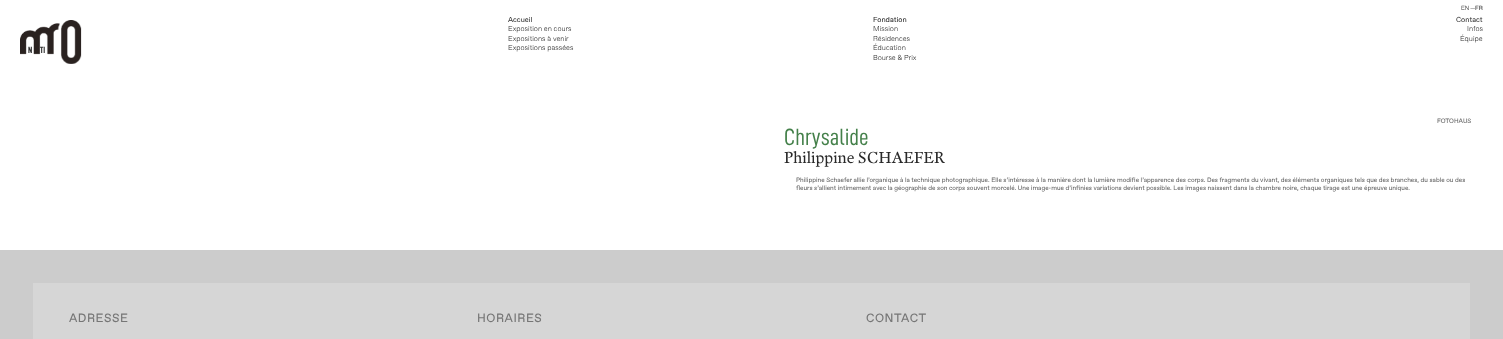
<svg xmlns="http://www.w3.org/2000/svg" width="1503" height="339">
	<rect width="100%" height="100%" fill="#FFFFFF" />
	<text x="1461" y="10" font-family="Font" font-size="6" font-weight="300" fill="#333333">EN</text>
	<text x="1470" y="10" font-family="Font" font-size="6" font-weight="300" fill="#292929">—</text>
	<text x="1475" y="10" font-family="Font" font-size="6" fill="#292929">FR</text>
	<text x="508" y="22" font-family="Font" font-size="7.25" fill="#333333">Accueil</text>
	<g font-family="Font" font-size="7.25" font-weight="300" fill="#333333">
		<text x="508" y="31">Exposition en cours</text>
		<text x="508" y="41">Expositions à venir</text>
		<text x="508" y="50">Expositions passées</text>
	</g>
	<text x="873" y="22" font-family="Font" font-size="7.25" fill="#292929">Fondation</text>
	<g font-family="Font" font-size="7.25" font-weight="300" fill="#333333">
		<text x="873" y="31">Mission</text>
		<text x="873" y="41">Résidences</text>
		<text x="873" y="50">Éducation</text>
		<text x="873" y="60">Bourse &amp; Prix</text>
	</g>
	<text x="1456" y="22" font-family="Font" font-size="7.25" fill="#333333">Contact</text>
	<g font-family="Font" font-size="7.25" font-weight="300" fill="#333333">
		<text x="1467" y="31">Infos</text>
		<text x="1460" y="41">Équipe</text>
	</g>
	<g font-family="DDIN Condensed" font-size="9" font-weight="700" fill="#333333">
		<text x="28" y="53">N</text>
		<text x="40" y="53">TI</text>
	</g>
	<image x="20" y="20" width="62" height="44" href="assets/img1.png" />
	<text x="1437" y="123" font-family="Font" font-size="6.35" fill="#666666">FOTOHAUS</text>
	<text x="784" y="145" font-family="DDIN Condensed" font-size="23.5" fill="#44804A">Chrysalide</text>
	<text x="784" y="163" font-family="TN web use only" font-size="16.1" fill="#292929">Philippine SCHAEFER</text>
	<g font-family="Font" font-size="6.35" fill="#666666">
		<text x="796" y="182">Philippine Schaefer allie l’organique à la technique photographique. Elle s’intéresse à la manière dont la lumière modifie l’apparence des corps. Des fragments du vivant, des éléments organiques tels que des branches, du sable ou des</text>
		<text x="796" y="190">fleurs s’allient intimement avec la géographie de son corps souvent morcelé. Une image-mue d’infinies variations devient possible. Les images naissent dans la chambre noire, chaque tirage est une épreuve unique.</text>
	</g>
	<rect x="0" y="250" width="1503" height="89" fill="#CCCCCC" />
	<rect x="33" y="283" width="1437" height="56" fill="#D6D6D6" />
	<g font-family="Font" font-size="12" letter-spacing="0.5" fill="#767676">
		<text x="69" y="322">ADRESSE</text>
		<text x="477" y="322">HORAIRES</text>
		<text x="866" y="322">CONTACT</text>
	</g>
</svg>
